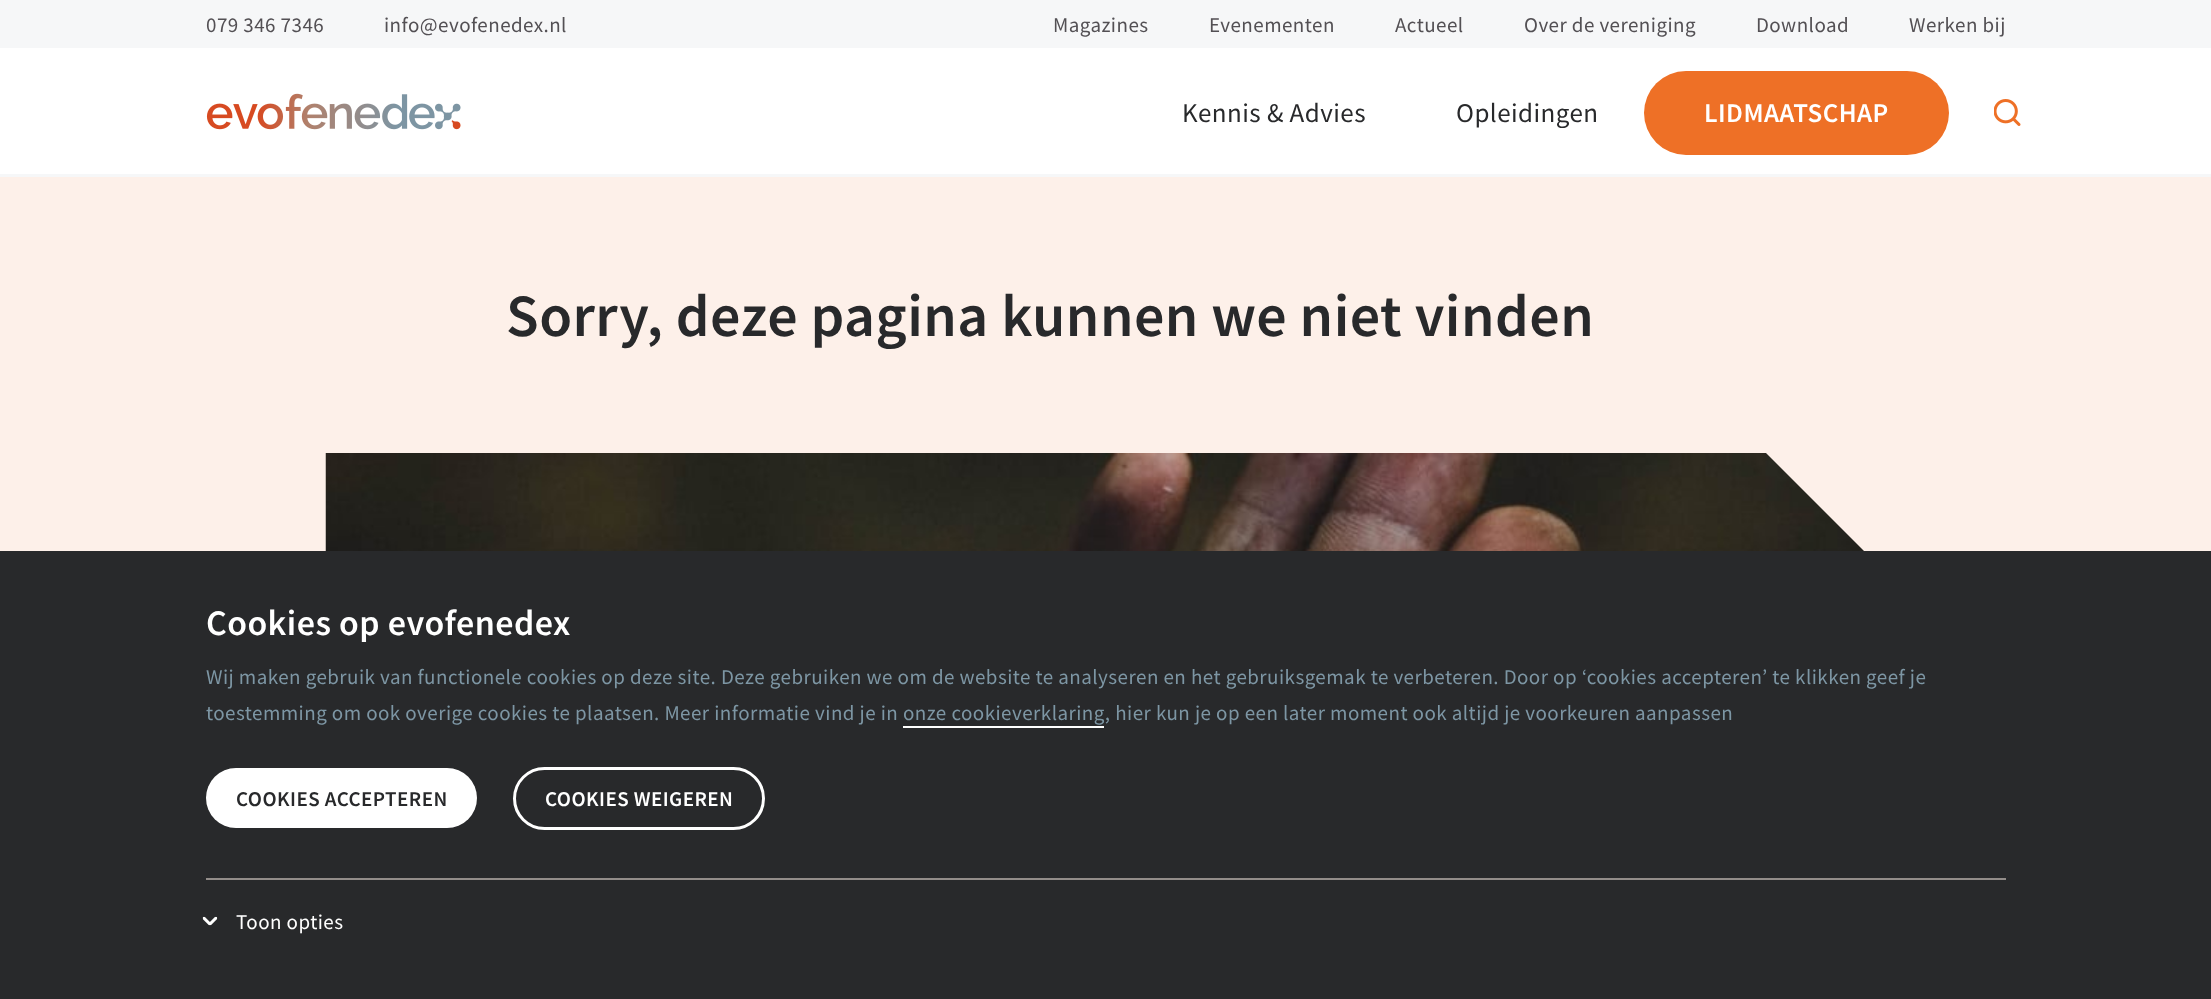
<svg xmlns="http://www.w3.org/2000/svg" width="2211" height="999">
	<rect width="100%" height="100%" fill="#FFFFFF" />
	<rect x="0" y="0" width="2211" height="48" fill="#F6F7F8" />
	<g font-family="Source Sans Pro" font-size="21" letter-spacing="0.45" fill="#535054">
		<text x="206" y="32">079 346 7346</text>
		<text x="384" y="32">info@evofenedex.nl</text>
		<text x="1053" y="32">Magazines</text>
		<text x="1209" y="32">Evenementen</text>
		<text x="1395" y="32">Actueel</text>
		<text x="1524" y="32">Over de vereniging</text>
		<text x="1756" y="32">Download</text>
		<text x="1909" y="32">Werken bij</text>
	</g>
	<image x="206" y="93" width="255" height="37" href="assets/img1.png" />
	<g font-family="Source Sans Pro" font-size="27" letter-spacing="0.45" fill="#28292B">
		<text x="1182" y="122">Kennis &amp; Advies</text>
		<text x="1456" y="122">Opleidingen</text>
	</g>
	<rect x="1644" y="71" width="305" height="84" rx="42" fill="#EE7026" />
	<text x="1704" y="122" font-family="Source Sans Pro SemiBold" font-size="27" font-weight="600" letter-spacing="0.45" fill="#FFFFFF">LIDMAATSCHAP</text>
	<image x="1994" y="99" width="27" height="27" href="assets/img2.png" />
	<rect x="0" y="174" width="2211" height="3" fill="#F6F7F8" />
	<rect x="0" y="177" width="2211" height="374" fill="#FDF0E9" />
	<text x="506" y="336" font-family="Source Sans Pro SemiBold" font-size="60" font-weight="600" letter-spacing="0.45" fill="#28292B">Sorry, deze pagina kunnen we niet vinden</text>
	<image x="325" y="453" width="1539" height="98" href="assets/img3.png" />
	<path d="M1886 453V573L1766 453Z" fill="#FDF0E9" />
	<rect x="0" y="551" width="2211" height="448" fill="#28292B" />
	<text x="206" y="635" font-family="Source Sans Pro SemiBold" font-size="36" font-weight="600" letter-spacing="0.45" fill="#FFFFFF">Cookies op evofenedex</text>
	<g font-family="Source Sans Pro" font-size="21" letter-spacing="0.45" fill="#7D96A4">
		<text x="206" y="684">Wij maken gebruik van functionele cookies op deze site. Deze gebruiken we om de website te analyseren en het gebruiksgemak te verbeteren. Door op ‘cookies accepteren’ te klikken geef je</text>
		<text x="206" y="720">toestemming om ook overige cookies te plaatsen. Meer informatie vind je in onze cookieverklaring, hier kun je op een later moment ook altijd je voorkeuren aanpassen</text>
	</g>
	<rect x="903" y="726" width="201" height="2" fill="#FFFFFF" />
	<rect x="206" y="768" width="271" height="60" rx="30" fill="#FFFFFF" />
	<text x="236" y="806" font-family="Source Sans Pro SemiBold" font-size="21" font-weight="600" letter-spacing="0.45" fill="#28292B">COOKIES ACCEPTEREN</text>
	<rect x="514.5" y="768.5" width="249" height="60" rx="30" fill="none" stroke="#FFFFFF" stroke-width="3" />
	<text x="545" y="806" font-family="Source Sans Pro SemiBold" font-size="21" font-weight="600" letter-spacing="0.45" fill="#FFFFFF">COOKIES WEIGEREN</text>
	<rect x="206" y="878" width="1800" height="2" fill="#938D8A" />
	<image x="202" y="916" width="16" height="10" href="assets/img4.png" />
	<text x="236" y="929" font-family="Source Sans Pro" font-size="21" letter-spacing="0.45" fill="#FFFFFF">Toon opties</text>
</svg>
